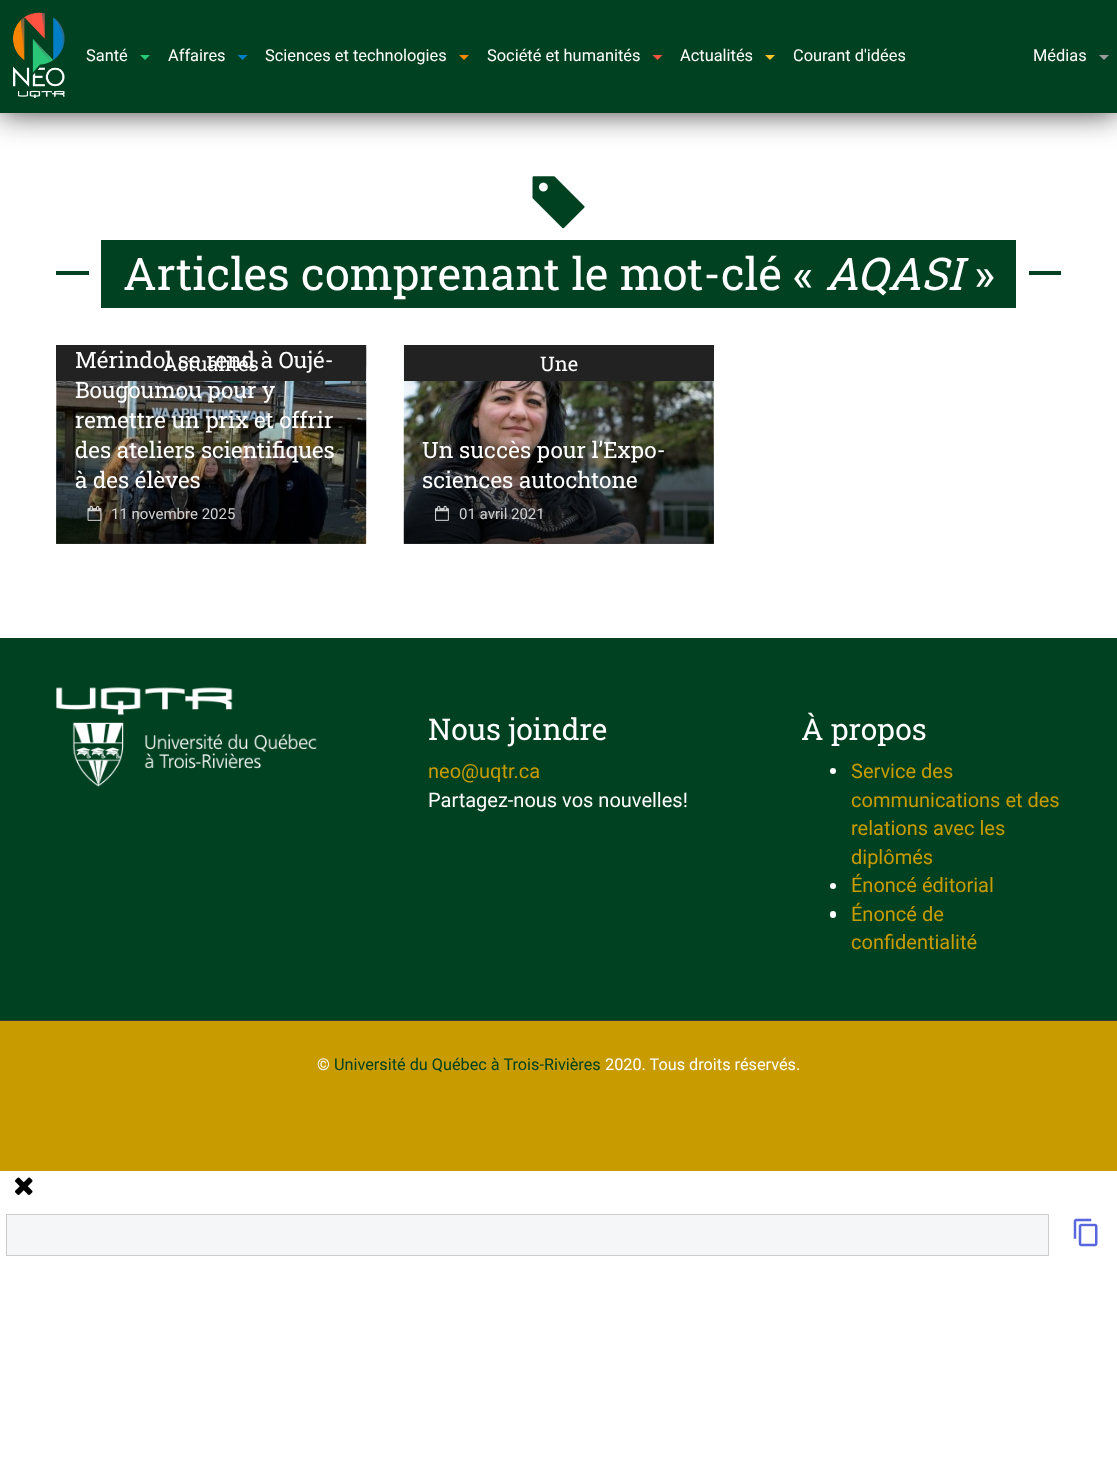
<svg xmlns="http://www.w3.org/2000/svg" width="1117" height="1466">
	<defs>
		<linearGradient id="g1" gradientUnits="userSpaceOnUse" x1="211" y1="405" x2="211" y2="544"><stop offset="0" stop-color="#000000" stop-opacity="0" /><stop offset="1" stop-color="#000000" stop-opacity="0.7" /></linearGradient>
		<linearGradient id="g2" gradientUnits="userSpaceOnUse" x1="559" y1="405" x2="559" y2="544"><stop offset="0" stop-color="#000000" stop-opacity="0" /><stop offset="1" stop-color="#000000" stop-opacity="0.7" /></linearGradient>
	</defs>
	<rect width="100%" height="100%" fill="#FFFFFF" />
	<rect x="0" y="0" width="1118" height="113" fill="#404040" filter="blur(15.5px)" />
	<rect x="0" y="0" width="1117" height="113" fill="#004121" />
	<image x="13" y="12" width="52" height="86" href="assets/img1.png" />
	<text x="86" y="61" font-family="Roboto" font-size="16.4" fill="#FFFFFF">Santé</text>
	<path d="M140 55H150L145 60Z" fill="#2AC87A" />
	<text x="168" y="61" font-family="Roboto" font-size="16.4" fill="#FFFFFF">Affaires</text>
	<path d="M237.5 55H247.5L242.5 60Z" fill="#007FC7" />
	<text x="265" y="61" font-family="Roboto" font-size="16.4" fill="#FFFFFF">Sciences et technologies</text>
	<path d="M459 55H469L464 60Z" fill="#F78600" />
	<text x="487" y="61" font-family="Roboto" font-size="16.4" fill="#FFFFFF">Société et humanités</text>
	<path d="M652.5 55H662.5L657.5 60Z" fill="#FF5341" />
	<text x="680" y="61" font-family="Roboto" font-size="16.4" fill="#FFFFFF">Actualités</text>
	<path d="M765 55H775L770 60Z" fill="#FFC52D" />
	<g font-family="Roboto" font-size="16.4" fill="#FFFFFF">
		<text x="793" y="61">Courant d'idées</text>
		<text x="1033" y="61">Médias</text>
	</g>
	<path d="M1099 55H1109L1104 60Z" fill="#9A9A9A" />
	<image x="532" y="176" width="53" height="53" href="assets/img2.png" />
	<rect x="56" y="271" width="33" height="4" fill="#004121" />
	<rect x="101" y="240" width="915" height="68" fill="#004121" />
	<text x="123" y="290" font-family="Roboto Slab" font-size="45" fill="#FFFFFF">Articles comprenant le mot-clé «</text>
	<text x="825" y="290" font-family="Roboto Slab" font-size="45" font-style="italic" fill="#FFFFFF">AQASI</text>
	<text x="974" y="290" font-family="Roboto Slab" font-size="45" fill="#FFFFFF">»</text>
	<rect x="1029" y="271" width="32" height="4" fill="#004121" />
	<image x="56" y="345" width="311" height="199" href="assets/img3.png" />
	<rect x="56" y="409" width="310" height="135" fill="url(#g1)" />
	<rect x="56" y="345" width="310" height="36" fill="#222222" />
	<text x="163" y="371" font-family="Roboto Slab" font-size="20" fill="#FFFFFF">Actualités</text>
	<g font-family="Roboto Slab" font-size="22.5" fill="#FFFFFF">
		<text x="75" y="368">Mérindol se rend à Oujé-</text>
		<text x="75" y="398">Bougoumou pour y</text>
		<text x="75" y="428">remettre un prix et offrir</text>
		<text x="75" y="458">des ateliers scientifiques</text>
		<text x="75" y="488">à des élèves</text>
	</g>
	<image x="87" y="505" width="15" height="16" href="assets/img4.png" />
	<text x="111" y="519" font-family="Roboto" font-size="15" fill="#D1D1D1">11 novembre 2025</text>
	<image x="403" y="345" width="311" height="199" href="assets/img5.png" />
	<rect x="404" y="409" width="310" height="135" fill="url(#g2)" />
	<rect x="404" y="345" width="310" height="36" fill="#222222" />
	<text x="540" y="371" font-family="Roboto Slab" font-size="20" fill="#FFFFFF">Une</text>
	<g font-family="Roboto Slab" font-size="22.5" fill="#FFFFFF">
		<text x="422" y="458">Un succès pour l’Expo-</text>
		<text x="422" y="488">sciences autochtone</text>
	</g>
	<image x="435" y="505" width="14" height="16" href="assets/img6.png" />
	<text x="459" y="519" font-family="Roboto" font-size="15" fill="#D1D1D1">01 avril 2021</text>
	<rect x="0" y="638" width="1117" height="382" fill="#004121" />
	<image x="56" y="687" width="261" height="100" href="assets/img7.png" />
	<text x="428" y="740" font-family="Roboto Slab" font-size="30" fill="#FFFFFF">Nous joindre</text>
	<text x="428" y="778" font-family="Roboto" font-size="20" fill="#C89C00">neo@uqtr.ca</text>
	<text x="428" y="807" font-family="Roboto" font-size="20" fill="#FFFFFF">Partagez-nous vos nouvelles!</text>
	<text x="801" y="740" font-family="Roboto Slab" font-size="30" fill="#FFFFFF">À propos</text>
	<circle cx="833" cy="771" r="3" fill="#FFFFFF" />
	<g font-family="Roboto" font-size="20" fill="#C89C00">
		<text x="851" y="778">Service des</text>
		<text x="851" y="807">communications et des</text>
		<text x="851" y="835">relations avec les</text>
		<text x="851" y="864">diplômés</text>
	</g>
	<circle cx="833" cy="886" r="3" fill="#FFFFFF" />
	<text x="851" y="892" font-family="Roboto" font-size="20" fill="#C89C00">Énoncé éditorial</text>
	<rect x="830" y="911" width="6" height="7" rx="3" fill="#FFFFFF" />
	<g font-family="Roboto" font-size="20" fill="#C89C00">
		<text x="851" y="921">Énoncé de</text>
		<text x="851" y="949">confidentialité</text>
	</g>
	<rect x="0" y="1021" width="1117" height="150" fill="#C89C00" />
	<rect x="0" y="1020" width="1117" height="1" fill="#393939" />
	<text x="317" y="1070" font-family="Roboto" font-size="16.25" fill="#FFFFFF">©</text>
	<text x="334" y="1070" font-family="Roboto" font-size="16.25" fill="#004121">Université du Québec à Trois-Rivières</text>
	<text x="605" y="1070" font-family="Roboto" font-size="16.25" fill="#FFFFFF">2020. Tous droits réservés.</text>
	<image x="15" y="1177" width="18" height="18" href="assets/img8.png" />
	<rect x="6.5" y="1214.5" width="1042" height="41" fill="#F5F6F7" stroke="#CCCCCC" />
	<image x="1073" y="1218" width="25" height="29" href="assets/img9.png" />
</svg>
